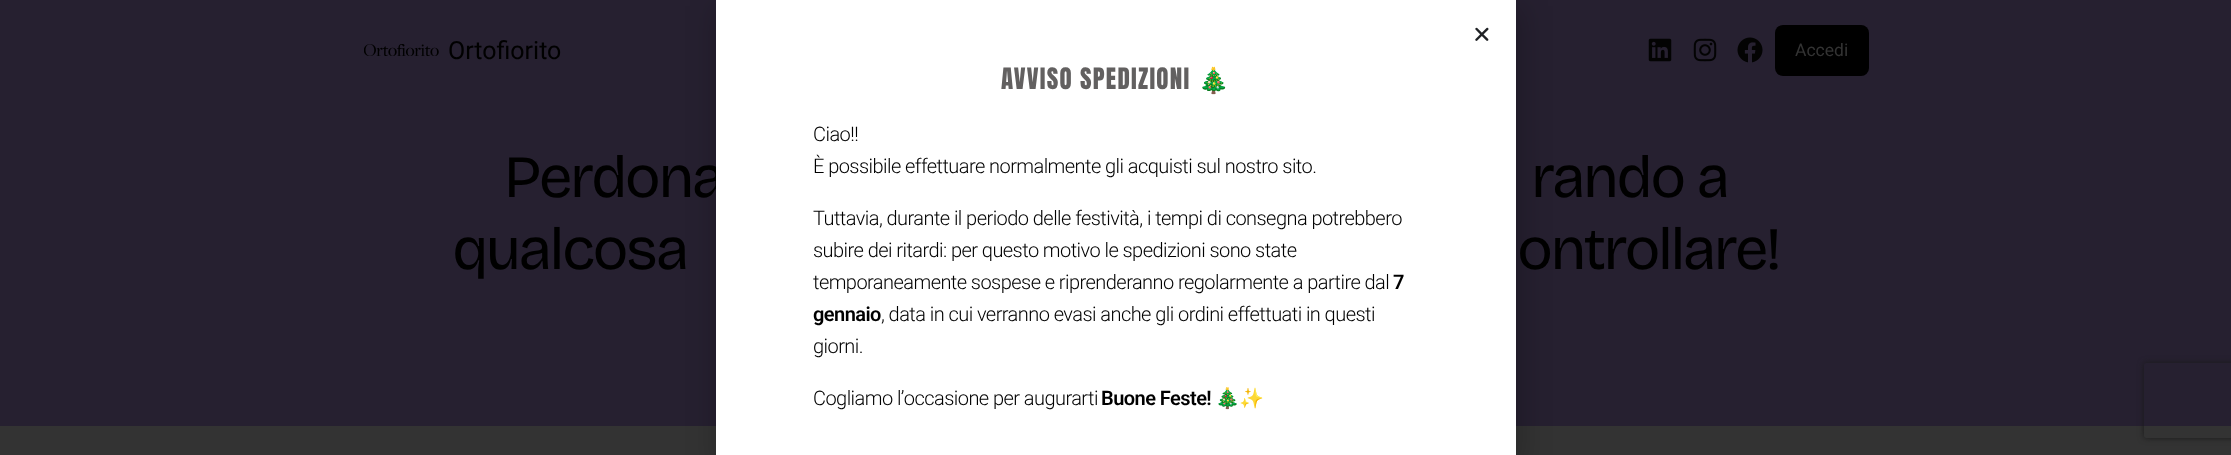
<svg xmlns="http://www.w3.org/2000/svg" width="2231" height="455">
	<defs>
		<clipPath id="clip1"><path d="M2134 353H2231V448H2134ZM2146.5 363H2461.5C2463 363 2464 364 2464 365.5V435.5C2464 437 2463 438 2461.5 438H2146.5C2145 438 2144 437 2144 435.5V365.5C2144 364 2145 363 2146.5 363Z" clip-rule="evenodd" /></clipPath>
	</defs>
	<rect width="100%" height="100%" fill="#333333" />
	<rect x="0" y="0" width="2231" height="426" fill="#262030" />
	<image x="364" y="44" width="75" height="12" href="assets/img1.png" />
	<text x="448" y="59" font-family="Roboto" font-size="25" fill="#000000">Ortofiorito</text>
	<image x="1648" y="38" width="24" height="24" href="assets/img2.png" />
	<image x="1693" y="38" width="24" height="24" href="assets/img3.png" />
	<image x="1737" y="37" width="26" height="26" href="assets/img4.png" />
	<rect x="1775" y="25" width="94" height="51" rx="8" fill="#000000" />
	<text x="1795" y="56" font-family="Roboto" font-size="17.5" fill="#333333">Accedi</text>
	<g font-family="Bricolage Grotesque" font-size="60" letter-spacing="-2.5" fill="#000000">
		<text x="504" y="197">Perdona</text>
		<text x="1531" y="197">rando a</text>
		<text x="452" y="269">qualcosa</text>
		<text x="1517" y="269">ontrollare!</text>
	</g>
	<rect x="715" y="6" width="808" height="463" fill="#000000" fill-opacity="0.2" filter="blur(14.5px)" />
	<rect x="716" y="0" width="800" height="455" fill="#FFFFFF" />
	<image x="1475" y="27" width="14" height="14" href="assets/img5.png" />
	<text x="1001" y="89" font-family="Anton" font-size="25" letter-spacing="1.25" fill="#626060">AVVISO SPEDIZIONI</text>
	<text x="1198" y="89" font-family="Noto Color Emoji" font-size="25" letter-spacing="1.25" fill="#626060">🎄</text>
	<g font-family="Roboto" font-size="20" font-weight="300" letter-spacing="-0.55" fill="#000000">
		<text x="813" y="141">Ciao!!</text>
		<text x="813" y="173">È possibile effettuare normalmente gli acquisti sul nostro sito.</text>
		<text x="813" y="225">Tuttavia, durante il periodo delle festività, i tempi di consegna potrebbero</text>
		<text x="813" y="257">subire dei ritardi: per questo motivo le spedizioni sono state</text>
		<text x="813" y="289">temporaneamente sospese e riprenderanno regolarmente a partire dal</text>
	</g>
	<g font-family="Roboto" font-size="20" font-weight="600" letter-spacing="-0.55" fill="#000000">
		<text x="1393" y="289">7</text>
		<text x="813" y="321">gennaio</text>
	</g>
	<g font-family="Roboto" font-size="20" font-weight="300" letter-spacing="-0.55" fill="#000000">
		<text x="881" y="321">, data in cui verranno evasi anche gli ordini effettuati in questi</text>
		<text x="813" y="353">giorni.</text>
		<text x="813" y="405">Cogliamo l’occasione per augurarti</text>
	</g>
	<text x="1101" y="405" font-family="Roboto" font-size="20" font-weight="600" letter-spacing="-0.55" fill="#000000">Buone Feste!</text>
	<text x="1215" y="405" font-family="Noto Color Emoji" font-size="20" letter-spacing="-0.55" fill="#000000">🎄✨</text>
	<g clip-path="url(#clip1)">
		<rect x="2144" y="363" width="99" height="75" rx="2.5" fill="#1A1A1A" filter="blur(3px)" />
	</g>
</svg>
